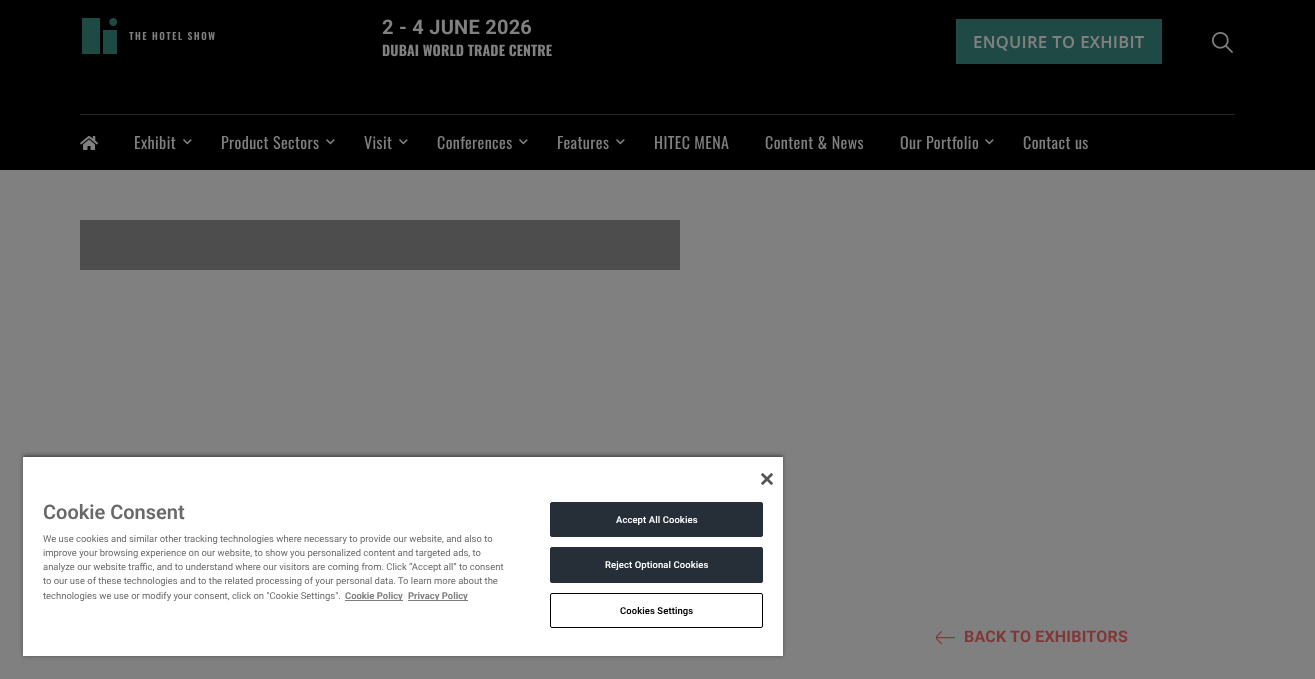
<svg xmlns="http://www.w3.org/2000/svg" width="1315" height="679">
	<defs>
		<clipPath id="clip1"><rect x="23" y="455" width="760" height="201" /></clipPath>
	</defs>
	<rect width="100%" height="100%" fill="#808080" />
	<rect x="0" y="0" width="1315" height="170" fill="#000000" />
	<image x="82" y="18" width="133" height="36" href="assets/img1.png" />
	<text x="382" y="34" font-family="Roboto" font-size="20" font-weight="700" letter-spacing="0.25" fill="#808080">2 - 4 JUNE 2026</text>
	<text x="382" y="56" font-family="Oswald" font-size="14" font-weight="700" letter-spacing="0.1" fill="#808080">DUBAI WORLD TRADE CENTRE</text>
	<rect x="956" y="19" width="206" height="45" fill="#1E4944" />
	<text x="973" y="48" font-family="Open Sans" font-size="16" font-weight="700" letter-spacing="0.75" fill="#808080">ENQUIRE TO EXHIBIT</text>
	<image x="1212" y="32" width="21" height="21" href="assets/img2.png" />
	<rect x="80" y="114" width="1155" height="1" fill="#272727" />
	<image x="80" y="136" width="18" height="14" href="assets/img3.png" />
	<text x="134" y="149" font-family="Oswald" font-size="16" letter-spacing="0.4" fill="#808080">Exhibit</text>
	<image x="183" y="139" width="9" height="6" href="assets/img4.png" />
	<text x="221" y="149" font-family="Oswald" font-size="16" letter-spacing="0.4" fill="#808080">Product Sectors</text>
	<image x="326" y="139" width="9" height="6" href="assets/img4.png" />
	<text x="364" y="149" font-family="Oswald" font-size="16" letter-spacing="0.4" fill="#808080">Visit</text>
	<image x="399" y="139" width="9" height="6" href="assets/img4.png" />
	<text x="437" y="149" font-family="Oswald" font-size="16" letter-spacing="0.4" fill="#808080">Conferences</text>
	<image x="519" y="139" width="9" height="6" href="assets/img4.png" />
	<text x="557" y="149" font-family="Oswald" font-size="16" letter-spacing="0.4" fill="#808080">Features</text>
	<image x="616" y="139" width="9" height="6" href="assets/img4.png" />
	<g font-family="Oswald" font-size="16" letter-spacing="0.4" fill="#808080">
		<text x="654" y="149">HITEC MENA</text>
		<text x="765" y="149">Content &amp; News</text>
		<text x="900" y="149">Our Portfolio</text>
	</g>
	<image x="985" y="139" width="9" height="6" href="assets/img4.png" />
	<text x="1023" y="149" font-family="Oswald" font-size="16" letter-spacing="0.4" fill="#808080">Contact us</text>
	<rect x="23" y="455" width="760" height="201" fill="#000000" fill-opacity="0.35" filter="blur(2px)" />
	<g clip-path="url(#clip1)">
		<rect x="23" y="457" width="760" height="199" fill="#000000" fill-opacity="0.2" filter="blur(2px)" />
	</g>
	<rect x="23" y="457" width="760" height="199" fill="#FFFFFF" />
	<image x="761" y="473" width="12" height="12" href="assets/img5.png" />
	<text x="43" y="519" font-family="Roboto" font-size="20" font-weight="600" fill="#696969">Cookie Consent</text>
	<g font-family="Roboto" font-size="9.45" fill="#696969">
		<text x="43" y="542">We use cookies and similar other tracking technologies where necessary to provide our website, and also to</text>
		<text x="43" y="556">improve your browsing experience on our website, to show you personalized content and targeted ads, to</text>
		<text x="43" y="570">analyze our website traffic, and to understand where our visitors are coming from. Click “Accept all” to consent</text>
		<text x="43" y="584">to our use of these technologies and to the related processing of your personal data. To learn more about the</text>
		<text x="43" y="599">technologies we use or modify your consent, click on "Cookie Settings".</text>
	</g>
	<rect x="345" y="600" width="58" height="1" fill="#7E7C7C" />
	<text x="345" y="599" font-family="Roboto" font-size="9.45" font-weight="700" fill="#808080">Cookie Policy</text>
	<rect x="408" y="600" width="60" height="1" fill="#7E7C7C" />
	<text x="408" y="599" font-family="Roboto" font-size="9.45" font-weight="700" fill="#808080">Privacy Policy</text>
	<rect x="550.5" y="502.5" width="212" height="34" rx="1.5" fill="#262E38" stroke="#262E38" />
	<text x="616" y="523" font-family="Roboto" font-size="9.45" font-weight="600" letter-spacing="0.1" fill="#FFFFFF">Accept All Cookies</text>
	<rect x="550.5" y="547.5" width="212" height="35" rx="1.5" fill="#262E38" stroke="#262E38" />
	<text x="605" y="568" font-family="Roboto" font-size="9.45" font-weight="600" letter-spacing="0.1" fill="#FFFFFF">Reject Optional Cookies</text>
	<rect x="550.5" y="593.5" width="212" height="34" rx="1.5" fill="none" stroke="#000000" />
	<text x="620" y="614" font-family="Roboto" font-size="9.45" font-weight="600" letter-spacing="0.1" fill="#000000">Cookies Settings</text>
	<rect x="80" y="220" width="600" height="50" fill="#4D4D4D" />
	<image x="936" y="631" width="19" height="14" href="assets/img6.png" />
	<text x="964" y="642" font-family="Roboto" font-size="16" font-weight="700" letter-spacing="0.2" fill="#803737">BACK TO EXHIBITORS</text>
</svg>
